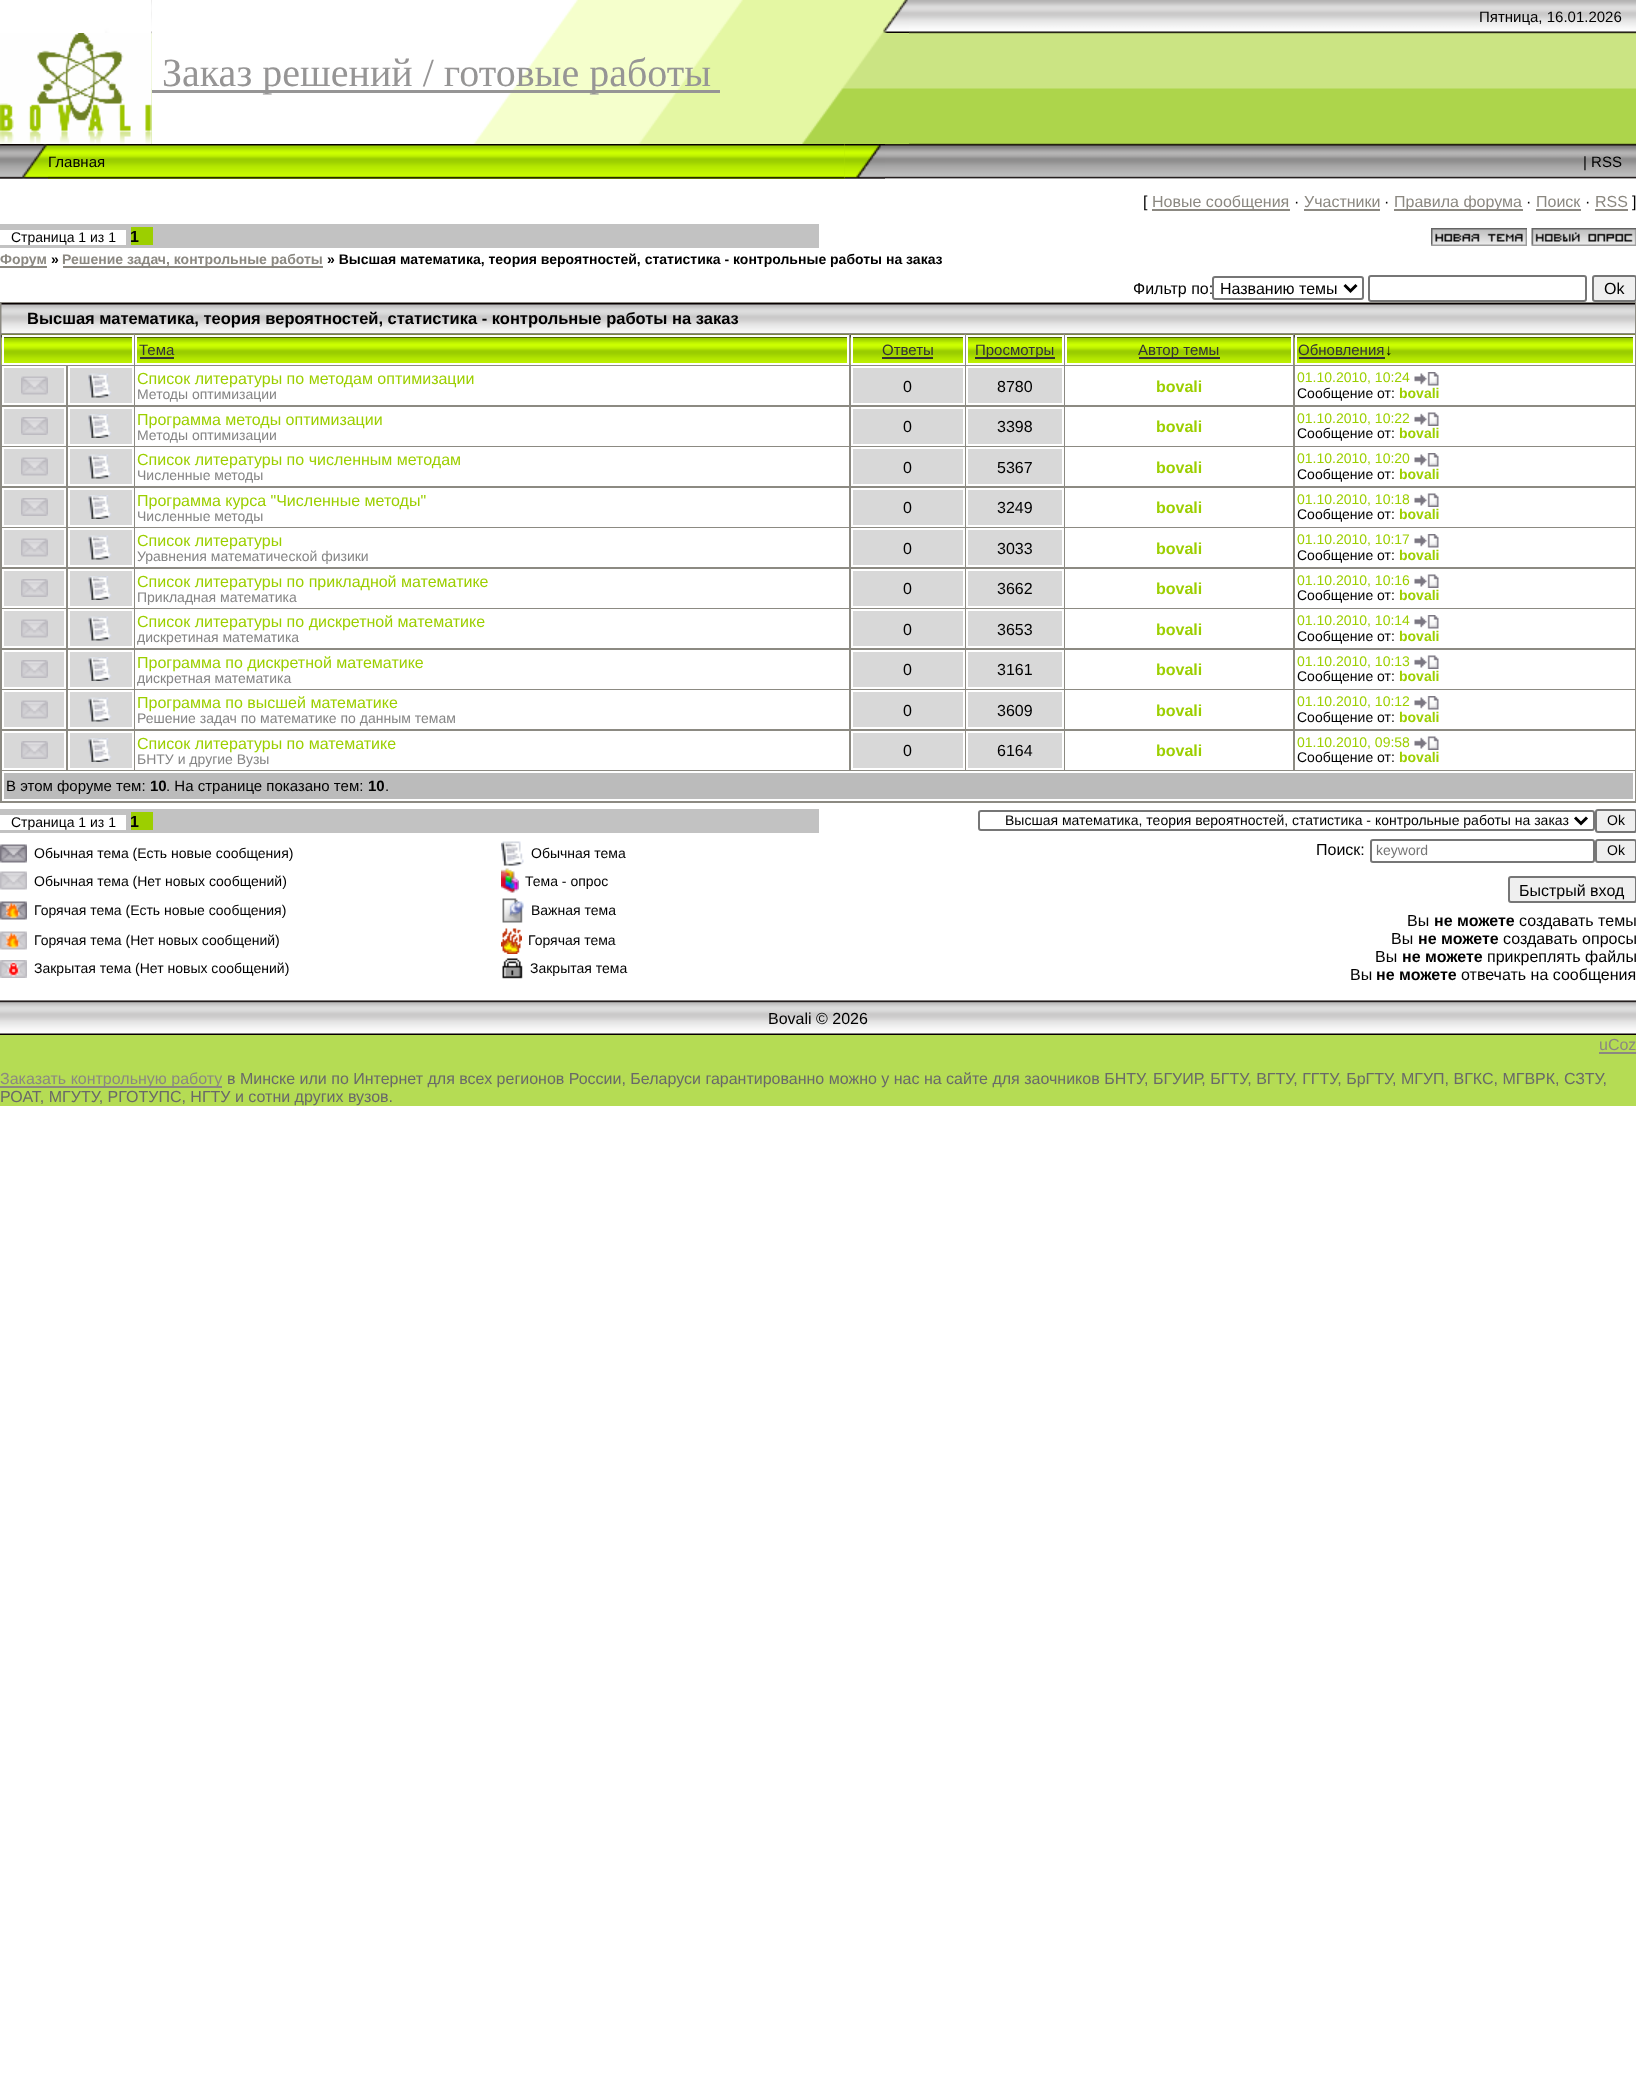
<svg xmlns="http://www.w3.org/2000/svg" width="1636" height="2079">
	<rect width="100%" height="100%" fill="#FFFFFF" />
	<image x="0" y="0" width="1636" height="179" href="assets/img1.png" />
	<image x="0" y="0" width="152" height="33" href="assets/img2.png" />
	<image x="151" y="0" width="758" height="33" href="assets/img3.png" />
	<text x="1479" y="22" font-family="Liberation Sans" font-size="15" fill="#000000">Пятница, 16.01.2026</text>
	<image x="151" y="33" width="758" height="111" href="assets/img5.png" />
	<image x="0" y="33" width="152" height="111" href="assets/img4.png" />
	<rect x="152" y="90" width="568" height="3" fill="#969595" />
	<text x="162" y="86" font-family="Liberation Serif" font-size="40" fill="#969595">Заказ решений / готовые работы</text>
	<image x="0" y="144" width="48" height="35" href="assets/img6.png" />
	<rect x="48" y="144" width="797" height="35" fill="#B0E300" />
	<image x="48" y="144" width="797" height="35" href="assets/img7.png" />
	<text x="48" y="167" font-family="Liberation Sans" font-size="15" fill="#000000">Главная</text>
	<image x="844" y="144" width="41" height="35" href="assets/img8.png" />
	<text x="1583" y="167" font-family="Liberation Sans" font-size="15" fill="#000000">| RSS</text>
	<text x="1143" y="207" font-family="Liberation Sans" font-size="16" fill="#000000">[</text>
	<rect x="1152" y="209" width="138" height="2" fill="#8B8881" />
	<text x="1152" y="207" font-family="Liberation Sans" font-size="16" fill="#8B8881">Новые сообщения</text>
	<text x="1294" y="207" font-family="Liberation Sans" font-size="16" fill="#000000">·</text>
	<text x="1304" y="207" font-family="Liberation Sans" font-size="16" fill="#8B8881">Участники</text>
	<rect x="1304" y="209" width="76" height="2" fill="#8B8881" />
	<text x="1384" y="207" font-family="Liberation Sans" font-size="16" fill="#000000">·</text>
	<rect x="1394" y="209" width="129" height="2" fill="#8B8881" />
	<text x="1394" y="207" font-family="Liberation Sans" font-size="16" fill="#8B8881">Правила форума</text>
	<text x="1526" y="207" font-family="Liberation Sans" font-size="16" fill="#000000">·</text>
	<text x="1536" y="207" font-family="Liberation Sans" font-size="16" fill="#8B8881">Поиск</text>
	<rect x="1536" y="209" width="45" height="2" fill="#8B8881" />
	<text x="1585" y="207" font-family="Liberation Sans" font-size="16" fill="#000000">·</text>
	<text x="1595" y="207" font-family="Liberation Sans" font-size="16" fill="#8B8881">RSS</text>
	<rect x="1595" y="209" width="33" height="2" fill="#8B8881" />
	<text x="1632" y="207" font-family="Liberation Sans" font-size="16" fill="#000000">]</text>
	<rect x="0" y="224" width="819" height="24" fill="#C2C2C2" />
	<rect x="0" y="230" width="126" height="15" fill="#FFFFFF" />
	<text x="11" y="242" font-family="Liberation Sans" font-size="14" fill="#000000">Страница 1 из 1</text>
	<rect x="131" y="227" width="22" height="18" fill="#9CCF00" />
	<text x="130" y="242" font-family="Liberation Sans" font-size="16" font-weight="700" fill="#000000">1</text>
	<image x="1431" y="228" width="96" height="18" href="assets/img9.png" />
	<image x="1531" y="228" width="105" height="18" href="assets/img10.png" />
	<rect x="0" y="266" width="47" height="2" fill="#8B8881" />
	<text x="0" y="264" font-family="Liberation Sans" font-size="14" font-weight="700" fill="#8B8881">Форум</text>
	<text x="51" y="264" font-family="Liberation Sans" font-size="14" font-weight="700" fill="#000000">»</text>
	<rect x="63" y="266" width="260" height="2" fill="#8B8881" />
	<text x="62" y="264" font-family="Liberation Sans" font-size="14" font-weight="700" fill="#8B8881">Решение задач, контрольные работы</text>
	<text x="327" y="264" font-family="Liberation Sans" font-size="14" font-weight="700" fill="#000000">» Высшая математика, теория вероятностей, статистика - контрольные работы на заказ</text>
	<text x="1133" y="294" font-family="Liberation Sans" font-size="16" fill="#000000">Фильтр по:</text>
	<rect x="1213" y="277" width="150" height="22" rx="2" fill="none" stroke="#767676" stroke-width="2" />
	<path d="M1344.5 285L1350.5 291L1356.5 285" fill="none" stroke="#000000" stroke-width="3" />
	<text x="1220" y="294" font-family="Liberation Sans" font-size="16" fill="#000000">Названию темы</text>
	<rect x="1369" y="276" width="217" height="25" rx="2" fill="none" stroke="#767676" stroke-width="2" />
	<rect x="1593" y="276" width="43" height="25" rx="2" fill="#EFEFEF" stroke="#767676" stroke-width="2" />
	<text x="1604" y="294" font-family="Liberation Sans" font-size="16" fill="#000000">Ok</text>
	<rect x="0" y="302" width="1636" height="501" fill="#8C8A82" />
	<image x="1" y="303" width="1634" height="30" href="assets/img11.png" />
	<text x="27" y="324" font-family="Liberation Sans" font-size="16.5" font-weight="700" fill="#000000">Высшая математика, теория вероятностей, статистика - контрольные работы на заказ</text>
	<image x="1" y="334" width="133" height="31" href="assets/img12.png" />
	<rect x="3" y="336" width="130" height="28" fill="none" stroke="#FFFFFF" stroke-width="2" />
	<image x="135" y="334" width="714" height="29" href="assets/img13.png" />
	<rect x="136" y="336" width="712" height="28" fill="none" stroke="#FFFFFF" stroke-width="2" />
	<text x="139" y="355" font-family="Liberation Sans" font-size="15" fill="#333333">Тема</text>
	<rect x="140" y="357" width="34" height="2" fill="#333333" />
	<image x="850" y="334" width="115" height="31" href="assets/img14.png" />
	<rect x="852" y="336" width="112" height="28" fill="none" stroke="#FFFFFF" stroke-width="2" />
	<text x="882" y="355" font-family="Liberation Sans" font-size="15" fill="#333333">Ответы</text>
	<rect x="882" y="357" width="51" height="2" fill="#333333" />
	<image x="966" y="334" width="98" height="29" href="assets/img15.png" />
	<rect x="967" y="336" width="96" height="28" fill="none" stroke="#FFFFFF" stroke-width="2" />
	<rect x="975" y="357" width="80" height="2" fill="#333333" />
	<text x="975" y="355" font-family="Liberation Sans" font-size="15" fill="#333333">Просмотры</text>
	<image x="1065" y="334" width="228" height="29" href="assets/img16.png" />
	<rect x="1066" y="336" width="226" height="28" fill="none" stroke="#FFFFFF" stroke-width="2" />
	<rect x="1139" y="357" width="81" height="2" fill="#333333" />
	<text x="1138" y="355" font-family="Liberation Sans" font-size="15" fill="#333333">Автор темы</text>
	<image x="1294" y="334" width="341" height="31" href="assets/img17.png" />
	<rect x="1296" y="336" width="338" height="28" fill="none" stroke="#FFFFFF" stroke-width="2" />
	<text x="1298" y="355" font-family="Liberation Sans" font-size="15" fill="#333333">Обновления</text>
	<rect x="1299" y="357" width="86" height="2" fill="#333333" />
	<text x="1385" y="355" font-family="Liberation Sans" font-size="15" fill="#000000">↓</text>
	<rect x="3" y="367" width="62" height="37" fill="#D8D8D8" stroke="#FFFFFF" stroke-width="2" />
	<image x="21" y="376" width="27" height="19" href="assets/img18.png" />
	<rect x="69" y="367" width="64" height="37" fill="#D8D8D8" stroke="#FFFFFF" stroke-width="2" />
	<image x="88" y="373" width="24" height="25" href="assets/img19.png" />
	<rect x="135" y="366" width="714" height="39" fill="#FFFFFF" />
	<text x="137" y="384" font-family="Liberation Sans" font-size="16" fill="#9CCF00">Список литературы по методам оптимизации</text>
	<text x="137" y="399" font-family="Liberation Sans" font-size="14" fill="#858585">Методы оптимизации</text>
	<rect x="852" y="367" width="112" height="37" fill="#D8D8D8" stroke="#FFFFFF" stroke-width="2" />
	<text x="903" y="392" font-family="Liberation Sans" font-size="16" fill="#000000">0</text>
	<rect x="967" y="367" width="96" height="37" fill="#D8D8D8" stroke="#FFFFFF" stroke-width="2" />
	<text x="997" y="392" font-family="Liberation Sans" font-size="16" fill="#000000">8780</text>
	<rect x="1065" y="366" width="228" height="39" fill="#FFFFFF" />
	<text x="1156" y="392" font-family="Liberation Sans" font-size="16" font-weight="700" fill="#9CCF00">bovali</text>
	<rect x="1295" y="366" width="340" height="39" fill="#FFFFFF" />
	<text x="1297" y="382" font-family="Liberation Sans" font-size="14" fill="#9CCF00">01.10.2010, 10:24</text>
	<image x="1414" y="372" width="25" height="14" href="assets/img20.png" />
	<text x="1297" y="398" font-family="Liberation Sans" font-size="14" fill="#000000">Сообщение от:</text>
	<text x="1399" y="398" font-family="Liberation Sans" font-size="14" font-weight="700" fill="#9CCF00">bovali</text>
	<rect x="3" y="408" width="62" height="37" fill="#D8D8D8" stroke="#FFFFFF" stroke-width="2" />
	<image x="21" y="417" width="27" height="18" href="assets/img21.png" />
	<rect x="69" y="408" width="64" height="37" fill="#D8D8D8" stroke="#FFFFFF" stroke-width="2" />
	<image x="88" y="414" width="24" height="24" href="assets/img22.png" />
	<rect x="135" y="407" width="714" height="39" fill="#FFFFFF" />
	<text x="137" y="425" font-family="Liberation Sans" font-size="16" fill="#9CCF00">Программа методы оптимизации</text>
	<text x="137" y="440" font-family="Liberation Sans" font-size="14" fill="#858585">Методы оптимизации</text>
	<rect x="852" y="408" width="112" height="37" fill="#D8D8D8" stroke="#FFFFFF" stroke-width="2" />
	<text x="903" y="432" font-family="Liberation Sans" font-size="16" fill="#000000">0</text>
	<rect x="967" y="408" width="96" height="37" fill="#D8D8D8" stroke="#FFFFFF" stroke-width="2" />
	<text x="997" y="432" font-family="Liberation Sans" font-size="16" fill="#000000">3398</text>
	<rect x="1065" y="407" width="228" height="39" fill="#FFFFFF" />
	<text x="1156" y="432" font-family="Liberation Sans" font-size="16" font-weight="700" fill="#9CCF00">bovali</text>
	<rect x="1295" y="407" width="340" height="39" fill="#FFFFFF" />
	<text x="1297" y="423" font-family="Liberation Sans" font-size="14" fill="#9CCF00">01.10.2010, 10:22</text>
	<image x="1414" y="412" width="25" height="14" href="assets/img23.png" />
	<text x="1297" y="438" font-family="Liberation Sans" font-size="14" fill="#000000">Сообщение от:</text>
	<text x="1399" y="438" font-family="Liberation Sans" font-size="14" font-weight="700" fill="#9CCF00">bovali</text>
	<rect x="3" y="448" width="62" height="37" fill="#D8D8D8" stroke="#FFFFFF" stroke-width="2" />
	<image x="21" y="457" width="27" height="19" href="assets/img18.png" />
	<rect x="69" y="448" width="64" height="37" fill="#D8D8D8" stroke="#FFFFFF" stroke-width="2" />
	<image x="88" y="454" width="24" height="25" href="assets/img19.png" />
	<rect x="135" y="447" width="714" height="39" fill="#FFFFFF" />
	<text x="137" y="465" font-family="Liberation Sans" font-size="16" fill="#9CCF00">Список литературы по численным методам</text>
	<text x="137" y="480" font-family="Liberation Sans" font-size="14" fill="#858585">Численные методы</text>
	<rect x="852" y="448" width="112" height="37" fill="#D8D8D8" stroke="#FFFFFF" stroke-width="2" />
	<text x="903" y="473" font-family="Liberation Sans" font-size="16" fill="#000000">0</text>
	<rect x="967" y="448" width="96" height="37" fill="#D8D8D8" stroke="#FFFFFF" stroke-width="2" />
	<text x="997" y="473" font-family="Liberation Sans" font-size="16" fill="#000000">5367</text>
	<rect x="1065" y="447" width="228" height="39" fill="#FFFFFF" />
	<text x="1156" y="473" font-family="Liberation Sans" font-size="16" font-weight="700" fill="#9CCF00">bovali</text>
	<rect x="1295" y="447" width="340" height="39" fill="#FFFFFF" />
	<text x="1297" y="463" font-family="Liberation Sans" font-size="14" fill="#9CCF00">01.10.2010, 10:20</text>
	<image x="1414" y="453" width="25" height="14" href="assets/img20.png" />
	<text x="1297" y="479" font-family="Liberation Sans" font-size="14" fill="#000000">Сообщение от:</text>
	<text x="1399" y="479" font-family="Liberation Sans" font-size="14" font-weight="700" fill="#9CCF00">bovali</text>
	<rect x="3" y="489" width="62" height="37" fill="#D8D8D8" stroke="#FFFFFF" stroke-width="2" />
	<image x="21" y="498" width="27" height="18" href="assets/img21.png" />
	<rect x="69" y="489" width="64" height="37" fill="#D8D8D8" stroke="#FFFFFF" stroke-width="2" />
	<image x="88" y="495" width="24" height="24" href="assets/img22.png" />
	<rect x="135" y="488" width="714" height="39" fill="#FFFFFF" />
	<text x="137" y="506" font-family="Liberation Sans" font-size="16" fill="#9CCF00">Программа курса "Численные методы"</text>
	<text x="137" y="521" font-family="Liberation Sans" font-size="14" fill="#858585">Численные методы</text>
	<rect x="852" y="489" width="112" height="37" fill="#D8D8D8" stroke="#FFFFFF" stroke-width="2" />
	<text x="903" y="513" font-family="Liberation Sans" font-size="16" fill="#000000">0</text>
	<rect x="967" y="489" width="96" height="37" fill="#D8D8D8" stroke="#FFFFFF" stroke-width="2" />
	<text x="997" y="513" font-family="Liberation Sans" font-size="16" fill="#000000">3249</text>
	<rect x="1065" y="488" width="228" height="39" fill="#FFFFFF" />
	<text x="1156" y="513" font-family="Liberation Sans" font-size="16" font-weight="700" fill="#9CCF00">bovali</text>
	<rect x="1295" y="488" width="340" height="39" fill="#FFFFFF" />
	<text x="1297" y="504" font-family="Liberation Sans" font-size="14" fill="#9CCF00">01.10.2010, 10:18</text>
	<image x="1414" y="493" width="25" height="14" href="assets/img23.png" />
	<text x="1297" y="519" font-family="Liberation Sans" font-size="14" fill="#000000">Сообщение от:</text>
	<text x="1399" y="519" font-family="Liberation Sans" font-size="14" font-weight="700" fill="#9CCF00">bovali</text>
	<rect x="3" y="529" width="62" height="37" fill="#D8D8D8" stroke="#FFFFFF" stroke-width="2" />
	<image x="21" y="538" width="27" height="19" href="assets/img18.png" />
	<rect x="69" y="529" width="64" height="37" fill="#D8D8D8" stroke="#FFFFFF" stroke-width="2" />
	<image x="88" y="535" width="24" height="25" href="assets/img19.png" />
	<rect x="135" y="528" width="714" height="39" fill="#FFFFFF" />
	<text x="137" y="546" font-family="Liberation Sans" font-size="16" fill="#9CCF00">Список литературы</text>
	<text x="137" y="561" font-family="Liberation Sans" font-size="14" fill="#858585">Уравнения математической физики</text>
	<rect x="852" y="529" width="112" height="37" fill="#D8D8D8" stroke="#FFFFFF" stroke-width="2" />
	<text x="903" y="554" font-family="Liberation Sans" font-size="16" fill="#000000">0</text>
	<rect x="967" y="529" width="96" height="37" fill="#D8D8D8" stroke="#FFFFFF" stroke-width="2" />
	<text x="997" y="554" font-family="Liberation Sans" font-size="16" fill="#000000">3033</text>
	<rect x="1065" y="528" width="228" height="39" fill="#FFFFFF" />
	<text x="1156" y="554" font-family="Liberation Sans" font-size="16" font-weight="700" fill="#9CCF00">bovali</text>
	<rect x="1295" y="528" width="340" height="39" fill="#FFFFFF" />
	<text x="1297" y="544" font-family="Liberation Sans" font-size="14" fill="#9CCF00">01.10.2010, 10:17</text>
	<image x="1414" y="534" width="25" height="14" href="assets/img20.png" />
	<text x="1297" y="560" font-family="Liberation Sans" font-size="14" fill="#000000">Сообщение от:</text>
	<text x="1399" y="560" font-family="Liberation Sans" font-size="14" font-weight="700" fill="#9CCF00">bovali</text>
	<rect x="3" y="570" width="62" height="37" fill="#D8D8D8" stroke="#FFFFFF" stroke-width="2" />
	<image x="21" y="579" width="27" height="18" href="assets/img21.png" />
	<rect x="69" y="570" width="64" height="37" fill="#D8D8D8" stroke="#FFFFFF" stroke-width="2" />
	<image x="88" y="576" width="24" height="24" href="assets/img22.png" />
	<rect x="135" y="569" width="714" height="39" fill="#FFFFFF" />
	<text x="137" y="587" font-family="Liberation Sans" font-size="16" fill="#9CCF00">Список литературы по прикладной математике</text>
	<text x="137" y="602" font-family="Liberation Sans" font-size="14" fill="#858585">Прикладная математика</text>
	<rect x="852" y="570" width="112" height="37" fill="#D8D8D8" stroke="#FFFFFF" stroke-width="2" />
	<text x="903" y="594" font-family="Liberation Sans" font-size="16" fill="#000000">0</text>
	<rect x="967" y="570" width="96" height="37" fill="#D8D8D8" stroke="#FFFFFF" stroke-width="2" />
	<text x="997" y="594" font-family="Liberation Sans" font-size="16" fill="#000000">3662</text>
	<rect x="1065" y="569" width="228" height="39" fill="#FFFFFF" />
	<text x="1156" y="594" font-family="Liberation Sans" font-size="16" font-weight="700" fill="#9CCF00">bovali</text>
	<rect x="1295" y="569" width="340" height="39" fill="#FFFFFF" />
	<text x="1297" y="585" font-family="Liberation Sans" font-size="14" fill="#9CCF00">01.10.2010, 10:16</text>
	<image x="1414" y="574" width="25" height="14" href="assets/img23.png" />
	<text x="1297" y="600" font-family="Liberation Sans" font-size="14" fill="#000000">Сообщение от:</text>
	<text x="1399" y="600" font-family="Liberation Sans" font-size="14" font-weight="700" fill="#9CCF00">bovali</text>
	<rect x="3" y="610" width="62" height="37" fill="#D8D8D8" stroke="#FFFFFF" stroke-width="2" />
	<image x="21" y="619" width="27" height="19" href="assets/img18.png" />
	<rect x="69" y="610" width="64" height="37" fill="#D8D8D8" stroke="#FFFFFF" stroke-width="2" />
	<image x="88" y="616" width="24" height="25" href="assets/img19.png" />
	<rect x="135" y="609" width="714" height="39" fill="#FFFFFF" />
	<text x="137" y="627" font-family="Liberation Sans" font-size="16" fill="#9CCF00">Список литературы по дискретной математике</text>
	<text x="137" y="642" font-family="Liberation Sans" font-size="14" fill="#858585">дискретиная математика</text>
	<rect x="852" y="610" width="112" height="37" fill="#D8D8D8" stroke="#FFFFFF" stroke-width="2" />
	<text x="903" y="635" font-family="Liberation Sans" font-size="16" fill="#000000">0</text>
	<rect x="967" y="610" width="96" height="37" fill="#D8D8D8" stroke="#FFFFFF" stroke-width="2" />
	<text x="997" y="635" font-family="Liberation Sans" font-size="16" fill="#000000">3653</text>
	<rect x="1065" y="609" width="228" height="39" fill="#FFFFFF" />
	<text x="1156" y="635" font-family="Liberation Sans" font-size="16" font-weight="700" fill="#9CCF00">bovali</text>
	<rect x="1295" y="609" width="340" height="39" fill="#FFFFFF" />
	<text x="1297" y="625" font-family="Liberation Sans" font-size="14" fill="#9CCF00">01.10.2010, 10:14</text>
	<image x="1414" y="615" width="25" height="14" href="assets/img20.png" />
	<text x="1297" y="641" font-family="Liberation Sans" font-size="14" fill="#000000">Сообщение от:</text>
	<text x="1399" y="641" font-family="Liberation Sans" font-size="14" font-weight="700" fill="#9CCF00">bovali</text>
	<rect x="3" y="651" width="62" height="37" fill="#D8D8D8" stroke="#FFFFFF" stroke-width="2" />
	<image x="21" y="660" width="27" height="18" href="assets/img21.png" />
	<rect x="69" y="651" width="64" height="37" fill="#D8D8D8" stroke="#FFFFFF" stroke-width="2" />
	<image x="88" y="657" width="24" height="24" href="assets/img22.png" />
	<rect x="135" y="650" width="714" height="39" fill="#FFFFFF" />
	<text x="137" y="668" font-family="Liberation Sans" font-size="16" fill="#9CCF00">Программа по дискретной математике</text>
	<text x="137" y="683" font-family="Liberation Sans" font-size="14" fill="#858585">дискретная математика</text>
	<rect x="852" y="651" width="112" height="37" fill="#D8D8D8" stroke="#FFFFFF" stroke-width="2" />
	<text x="903" y="675" font-family="Liberation Sans" font-size="16" fill="#000000">0</text>
	<rect x="967" y="651" width="96" height="37" fill="#D8D8D8" stroke="#FFFFFF" stroke-width="2" />
	<text x="997" y="675" font-family="Liberation Sans" font-size="16" fill="#000000">3161</text>
	<rect x="1065" y="650" width="228" height="39" fill="#FFFFFF" />
	<text x="1156" y="675" font-family="Liberation Sans" font-size="16" font-weight="700" fill="#9CCF00">bovali</text>
	<rect x="1295" y="650" width="340" height="39" fill="#FFFFFF" />
	<text x="1297" y="666" font-family="Liberation Sans" font-size="14" fill="#9CCF00">01.10.2010, 10:13</text>
	<image x="1414" y="655" width="25" height="14" href="assets/img23.png" />
	<text x="1297" y="681" font-family="Liberation Sans" font-size="14" fill="#000000">Сообщение от:</text>
	<text x="1399" y="681" font-family="Liberation Sans" font-size="14" font-weight="700" fill="#9CCF00">bovali</text>
	<rect x="3" y="691" width="62" height="37" fill="#D8D8D8" stroke="#FFFFFF" stroke-width="2" />
	<image x="21" y="700" width="27" height="19" href="assets/img18.png" />
	<rect x="69" y="691" width="64" height="37" fill="#D8D8D8" stroke="#FFFFFF" stroke-width="2" />
	<image x="88" y="697" width="24" height="25" href="assets/img19.png" />
	<rect x="135" y="690" width="714" height="39" fill="#FFFFFF" />
	<text x="137" y="708" font-family="Liberation Sans" font-size="16" fill="#9CCF00">Программа по высшей математике</text>
	<text x="137" y="723" font-family="Liberation Sans" font-size="14" fill="#858585">Решение задач по математике по данным темам</text>
	<rect x="852" y="691" width="112" height="37" fill="#D8D8D8" stroke="#FFFFFF" stroke-width="2" />
	<text x="903" y="716" font-family="Liberation Sans" font-size="16" fill="#000000">0</text>
	<rect x="967" y="691" width="96" height="37" fill="#D8D8D8" stroke="#FFFFFF" stroke-width="2" />
	<text x="997" y="716" font-family="Liberation Sans" font-size="16" fill="#000000">3609</text>
	<rect x="1065" y="690" width="228" height="39" fill="#FFFFFF" />
	<text x="1156" y="716" font-family="Liberation Sans" font-size="16" font-weight="700" fill="#9CCF00">bovali</text>
	<rect x="1295" y="690" width="340" height="39" fill="#FFFFFF" />
	<text x="1297" y="706" font-family="Liberation Sans" font-size="14" fill="#9CCF00">01.10.2010, 10:12</text>
	<image x="1414" y="696" width="25" height="14" href="assets/img20.png" />
	<text x="1297" y="722" font-family="Liberation Sans" font-size="14" fill="#000000">Сообщение от:</text>
	<text x="1399" y="722" font-family="Liberation Sans" font-size="14" font-weight="700" fill="#9CCF00">bovali</text>
	<rect x="3" y="732" width="62" height="37" fill="#D8D8D8" stroke="#FFFFFF" stroke-width="2" />
	<image x="21" y="741" width="27" height="18" href="assets/img21.png" />
	<rect x="69" y="732" width="64" height="37" fill="#D8D8D8" stroke="#FFFFFF" stroke-width="2" />
	<image x="88" y="738" width="24" height="24" href="assets/img22.png" />
	<rect x="135" y="731" width="714" height="39" fill="#FFFFFF" />
	<text x="137" y="749" font-family="Liberation Sans" font-size="16" fill="#9CCF00">Список литературы по математике</text>
	<text x="137" y="764" font-family="Liberation Sans" font-size="14" fill="#858585">БНТУ и другие Вузы</text>
	<rect x="852" y="732" width="112" height="37" fill="#D8D8D8" stroke="#FFFFFF" stroke-width="2" />
	<text x="903" y="756" font-family="Liberation Sans" font-size="16" fill="#000000">0</text>
	<rect x="967" y="732" width="96" height="37" fill="#D8D8D8" stroke="#FFFFFF" stroke-width="2" />
	<text x="997" y="756" font-family="Liberation Sans" font-size="16" fill="#000000">6164</text>
	<rect x="1065" y="731" width="228" height="39" fill="#FFFFFF" />
	<text x="1156" y="756" font-family="Liberation Sans" font-size="16" font-weight="700" fill="#9CCF00">bovali</text>
	<rect x="1295" y="731" width="340" height="39" fill="#FFFFFF" />
	<text x="1297" y="747" font-family="Liberation Sans" font-size="14" fill="#9CCF00">01.10.2010, 09:58</text>
	<image x="1414" y="736" width="25" height="14" href="assets/img23.png" />
	<text x="1297" y="762" font-family="Liberation Sans" font-size="14" fill="#000000">Сообщение от:</text>
	<text x="1399" y="762" font-family="Liberation Sans" font-size="14" font-weight="700" fill="#9CCF00">bovali</text>
	<rect x="3" y="772" width="1631" height="28" fill="#BBBBBB" stroke="#FFFFFF" stroke-width="2" />
	<text x="6" y="791" font-family="Liberation Sans" font-size="15" fill="#000000">В этом форуме тем:</text>
	<text x="150" y="791" font-family="Liberation Sans" font-size="15" font-weight="700" fill="#000000">10</text>
	<text x="166" y="791" font-family="Liberation Sans" font-size="15" fill="#000000">. На странице показано тем:</text>
	<text x="368" y="791" font-family="Liberation Sans" font-size="15" font-weight="700" fill="#000000">10</text>
	<text x="385" y="791" font-family="Liberation Sans" font-size="15" fill="#000000">.</text>
	<rect x="0" y="809" width="819" height="24" fill="#C2C2C2" />
	<rect x="0" y="815" width="126" height="15" fill="#FFFFFF" />
	<text x="11" y="827" font-family="Liberation Sans" font-size="14" fill="#000000">Страница 1 из 1</text>
	<rect x="131" y="812" width="22" height="18" fill="#9CCF00" />
	<text x="130" y="827" font-family="Liberation Sans" font-size="16" font-weight="700" fill="#000000">1</text>
	<rect x="979" y="811" width="615" height="19" rx="2" fill="none" stroke="#767676" stroke-width="2" />
	<path d="M1575 817.5L1581 823.5L1587 817.5" fill="none" stroke="#000000" stroke-width="3" />
	<text x="1005" y="825" font-family="Liberation Sans" font-size="14" fill="#000000">Высшая математика, теория вероятностей, статистика - контрольные работы на заказ</text>
	<rect x="1596" y="810" width="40" height="22" rx="2" fill="#EFEFEF" stroke="#767676" stroke-width="2" />
	<text x="1607" y="825" font-family="Liberation Sans" font-size="14" fill="#000000">Ok</text>
	<image x="0" y="844" width="27" height="19" href="assets/img24.png" />
	<text x="34" y="858" font-family="Liberation Sans" font-size="14" fill="#000000">Обычная тема (Есть новые сообщения)</text>
	<image x="501" y="841" width="23" height="25" href="assets/img25.png" />
	<text x="531" y="858" font-family="Liberation Sans" font-size="14" fill="#000000">Обычная тема</text>
	<image x="0" y="871" width="27" height="19" href="assets/img26.png" />
	<text x="34" y="886" font-family="Liberation Sans" font-size="14" fill="#000000">Обычная тема (Нет новых сообщений)</text>
	<image x="501" y="868" width="18" height="25" href="assets/img27.png" />
	<text x="525" y="886" font-family="Liberation Sans" font-size="14" fill="#000000">Тема - опрос</text>
	<image x="0" y="901" width="27" height="19" href="assets/img28.png" />
	<text x="34" y="915" font-family="Liberation Sans" font-size="14" fill="#000000">Горячая тема (Есть новые сообщения)</text>
	<image x="502" y="898" width="22" height="25" href="assets/img29.png" />
	<text x="531" y="915" font-family="Liberation Sans" font-size="14" fill="#000000">Важная тема</text>
	<image x="0" y="931" width="27" height="19" href="assets/img30.png" />
	<text x="34" y="945" font-family="Liberation Sans" font-size="14" fill="#000000">Горячая тема (Нет новых сообщений)</text>
	<image x="501" y="928" width="21" height="26" href="assets/img31.png" />
	<text x="528" y="945" font-family="Liberation Sans" font-size="14" fill="#000000">Горячая тема</text>
	<image x="0" y="960" width="27" height="18" href="assets/img32.png" />
	<text x="34" y="973" font-family="Liberation Sans" font-size="14" fill="#000000">Закрытая тема (Нет новых сообщений)</text>
	<image x="502" y="958" width="21" height="21" href="assets/img33.png" />
	<text x="530" y="973" font-family="Liberation Sans" font-size="14" fill="#000000">Закрытая тема</text>
	<text x="1316" y="855" font-family="Liberation Sans" font-size="16" fill="#000000">Поиск:</text>
	<rect x="1371" y="840" width="223" height="22" rx="2" fill="none" stroke="#767676" stroke-width="2" />
	<text x="1376" y="855" font-family="Liberation Sans" font-size="14" fill="#757575">keyword</text>
	<rect x="1596" y="840" width="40" height="22" rx="2" fill="#EFEFEF" stroke="#767676" stroke-width="2" />
	<text x="1607" y="855" font-family="Liberation Sans" font-size="14" fill="#000000">Ok</text>
	<rect x="1509" y="877" width="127" height="25" rx="2" fill="#EFEFEF" stroke="#767676" stroke-width="2" />
	<g font-family="Liberation Sans" font-size="16" fill="#000000">
		<text x="1519" y="896">Быстрый вход</text>
		<text x="1407" y="926">Вы</text>
	</g>
	<text x="1434" y="926" font-family="Liberation Sans" font-size="16" font-weight="700" fill="#000000">не можете</text>
	<g font-family="Liberation Sans" font-size="16" fill="#000000">
		<text x="1519" y="926">создавать темы</text>
		<text x="1391" y="944">Вы</text>
	</g>
	<text x="1418" y="944" font-family="Liberation Sans" font-size="16" font-weight="700" fill="#000000">не можете</text>
	<g font-family="Liberation Sans" font-size="16" fill="#000000">
		<text x="1503" y="944">создавать опросы</text>
		<text x="1375" y="962">Вы</text>
	</g>
	<text x="1402" y="962" font-family="Liberation Sans" font-size="16" font-weight="700" fill="#000000">не можете</text>
	<g font-family="Liberation Sans" font-size="16" fill="#000000">
		<text x="1487" y="962">прикреплять файлы</text>
		<text x="1350" y="980">Вы</text>
	</g>
	<text x="1376" y="980" font-family="Liberation Sans" font-size="16" font-weight="700" fill="#000000">не можете</text>
	<text x="1461" y="980" font-family="Liberation Sans" font-size="16" fill="#000000">отвечать на сообщения</text>
	<image x="0" y="1000" width="1636" height="35" href="assets/img34.png" />
	<text x="768" y="1024" font-family="Liberation Sans" font-size="16" fill="#000000">Bovali © 2026</text>
	<rect x="0" y="1035" width="1636" height="71" fill="#B5DC54" />
	<text x="1599" y="1050" font-family="Liberation Sans" font-size="16" fill="#8B8881">uCoz</text>
	<rect x="1599" y="1052" width="37" height="2" fill="#8B8881" />
	<rect x="0" y="1086" width="222" height="2" fill="#8B8881" />
	<text x="0" y="1084" font-family="Liberation Sans" font-size="16" fill="#8B8881">Заказать контрольную работу</text>
	<g font-family="Liberation Sans" font-size="16" fill="#696969">
		<text x="227" y="1084">в Минске или по Интернет для всех регионов России, Беларуси гарантированно можно у нас на сайте для заочников БНТУ, БГУИР, БГТУ, ВГТУ, ГГТУ, БрГТУ, МГУП, ВГКС, МГВРК, СЗТУ,</text>
		<text x="0" y="1102">РОАТ, МГУТУ, РГОТУПС, НГТУ и сотни других вузов.</text>
	</g>
</svg>
